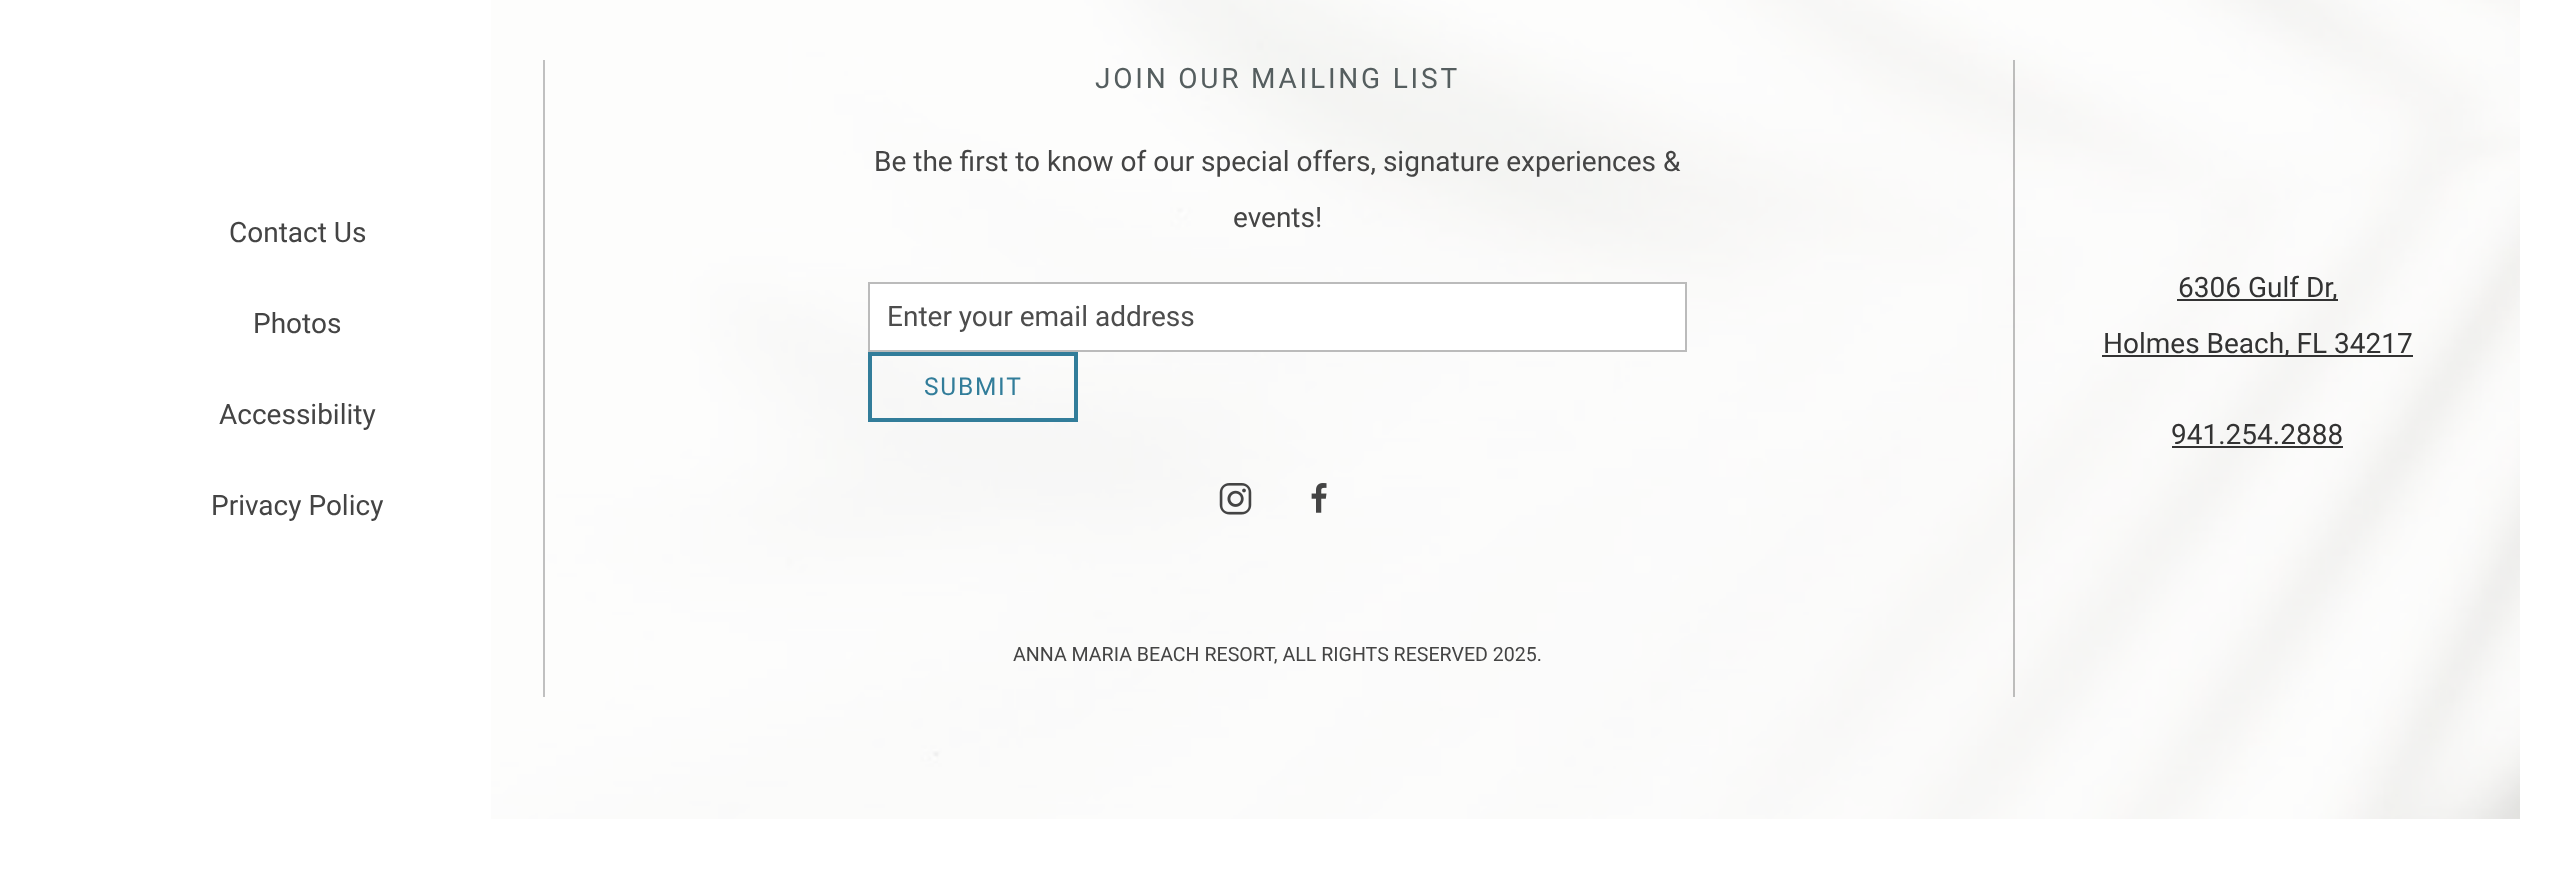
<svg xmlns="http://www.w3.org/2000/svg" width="2555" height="884">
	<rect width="100%" height="100%" fill="#FFFFFF" />
	<image x="491" y="0" width="2029" height="819" href="assets/img1.png" />
	<g font-family="Roboto" font-size="28" fill="#444444">
		<text x="229" y="242">Contact Us</text>
		<text x="253" y="333">Photos</text>
		<text x="219" y="424">Accessibility</text>
		<text x="211" y="515">Privacy Policy</text>
	</g>
	<rect x="543" y="60" width="2" height="637" fill="#C0C0C0" />
	<text x="1095" y="88" font-family="Roboto" font-size="28" letter-spacing="2.8" fill="#555E5F">JOIN OUR MAILING LIST</text>
	<g font-family="Roboto" font-size="28" fill="#444444">
		<text x="874" y="171">Be the first to know of our special offers, signature experiences &amp;</text>
		<text x="1233" y="227">events!</text>
	</g>
	<rect x="869" y="283" width="817" height="68" fill="#FFFFFF" stroke="#BBBBBB" stroke-width="2" />
	<text x="887" y="326" font-family="Roboto" font-size="28" fill="#4D4D4D">Enter your email address</text>
	<rect x="870" y="354" width="206" height="66" fill="none" stroke="#327D9A" stroke-width="4" />
	<text x="924" y="395" font-family="Roboto" font-size="24.5" letter-spacing="1.75" fill="#327D9A">SUBMIT</text>
	<image x="1219" y="483" width="33" height="32" href="assets/img2.png" />
	<image x="1311" y="483" width="16" height="30" href="assets/img3.png" />
	<text x="1013" y="661" font-family="Roboto" font-size="19.6" fill="#444444">ANNA MARIA BEACH RESORT, ALL RIGHTS RESERVED 2025.</text>
	<rect x="2013" y="60" width="2" height="637" fill="#333333" fill-opacity="0.3" />
	<rect x="2177" y="299" width="161" height="2" fill="#333333" />
	<text x="2178" y="297" font-family="Roboto" font-size="28" fill="#333333">6306 Gulf Dr,</text>
	<rect x="2102" y="355" width="311" height="2" fill="#333333" />
	<g font-family="Roboto" font-size="28" fill="#333333">
		<text x="2103" y="353">Holmes Beach, FL 34217</text>
		<text x="2171" y="444">941.254.2888</text>
	</g>
	<rect x="2172" y="446" width="171" height="2" fill="#333333" />
</svg>
